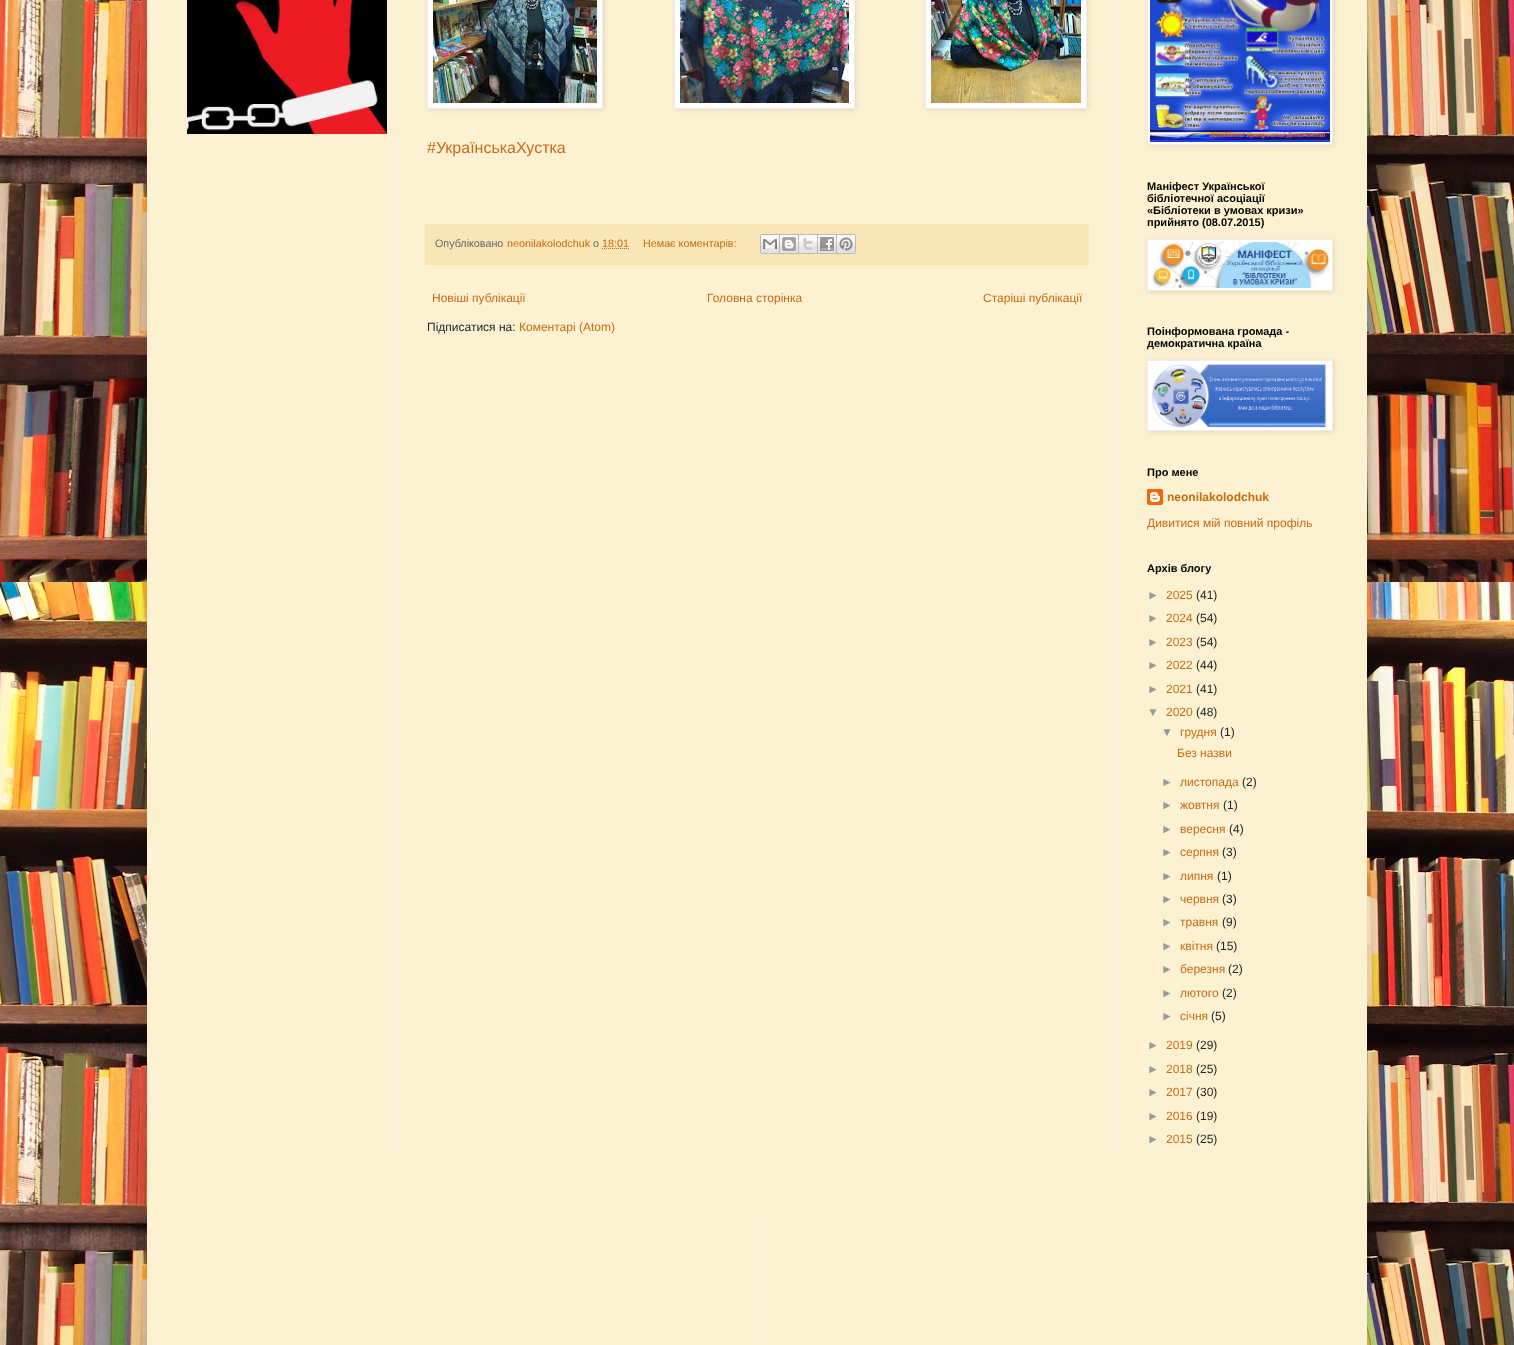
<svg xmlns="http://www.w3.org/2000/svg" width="1514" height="1345">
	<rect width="100%" height="100%" fill="#FFFFFF" />
	<image x="0" y="0" width="1514" height="1345" href="assets/img1.png" />
	<rect x="147" y="-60" width="1220" height="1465" fill="#000000" fill-opacity="0.15" filter="blur(20px)" />
	<rect x="147" y="0" width="1220" height="1345" fill="#FCF1D0" />
	<rect x="396" y="0" width="1" height="1152" fill="#EEEEEE" />
	<rect x="1117" y="0" width="1" height="1152" fill="#EEEEEE" />
	<image x="187" y="0" width="200" height="134" href="assets/img2.png" />
	<rect x="428" y="-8" width="176" height="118" fill="#000000" fill-opacity="0.1" filter="blur(2.5px)" />
	<rect x="427.5" y="-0.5" width="175" height="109" fill="#FFFFFF" stroke="#EEEEEE" />
	<image x="433" y="0" width="164" height="103" href="assets/img3.png" />
	<rect x="675" y="-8" width="181" height="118" fill="#000000" fill-opacity="0.1" filter="blur(2.5px)" />
	<rect x="674.5" y="-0.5" width="180" height="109" fill="#FFFFFF" stroke="#EEEEEE" />
	<rect x="926" y="-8" width="162" height="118" fill="#000000" fill-opacity="0.1" filter="blur(2.5px)" />
	<rect x="925.5" y="-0.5" width="161" height="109" fill="#FFFFFF" stroke="#EEEEEE" />
	<image x="931" y="0" width="150" height="103" href="assets/img4.png" />
	<image x="680" y="0" width="169" height="103" href="assets/img5.png" />
	<text x="427" y="153" font-family="Liberation Sans" font-size="16" fill="#CC6B11">#УкраїнськаХустка</text>
	<rect x="425" y="224" width="664" height="40" fill="#FAE5B7" />
	<rect x="425" y="264" width="664" height="1" fill="#FFE599" />
	<text x="435" y="247" font-family="Liberation Sans" font-size="10.75" fill="#666666">Опубліковано</text>
	<text x="507" y="247" font-family="Liberation Sans" font-size="10.75" fill="#CC6B11">neonilakolodchuk</text>
	<text x="593" y="247" font-family="Liberation Sans" font-size="10.75" fill="#666666">о</text>
	<text x="602" y="247" font-family="Liberation Sans" font-size="10.75" fill="#CC6B11">18:01</text>
	<path d="M602 248.5H629" fill="none" stroke="#CC6B11" stroke-dasharray="1 1" />
	<text x="643" y="247" font-family="Liberation Sans" font-size="10.75" fill="#CC6B11">Немає коментарів:</text>
	<image x="760" y="234" width="20" height="20" href="assets/img6.png" />
	<image x="780" y="234" width="19" height="20" href="assets/img7.png" />
	<image x="799" y="234" width="19" height="20" href="assets/img8.png" />
	<image x="818" y="234" width="19" height="20" href="assets/img9.png" />
	<image x="837" y="234" width="19" height="20" href="assets/img10.png" />
	<g font-family="Liberation Sans" font-size="12" fill="#CC6B11">
		<text x="432" y="302">Новіші публікації</text>
		<text x="707" y="302">Головна сторінка</text>
		<text x="983" y="302">Старіші публікації</text>
	</g>
	<text x="427" y="331" font-family="Liberation Sans" font-size="12" fill="#262626">Підписатися на:</text>
	<text x="519" y="331" font-family="Liberation Sans" font-size="12" fill="#CC6B11">Коментарі (Atom)</text>
	<rect x="1148" y="-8" width="186" height="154" fill="#000000" fill-opacity="0.1" filter="blur(2.5px)" />
	<rect x="1147.5" y="-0.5" width="185" height="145" fill="#FFFFFF" stroke="#EEEEEE" />
	<image x="1150" y="0" width="180" height="142" href="assets/img11.png" />
	<g font-family="Liberation Sans" font-size="11" font-weight="700" fill="#000000">
		<text x="1147" y="190">Маніфест Української</text>
		<text x="1147" y="202">бібліотечної асоціації</text>
		<text x="1147" y="214">«Бібліотеки в умовах кризи»</text>
		<text x="1147" y="226">прийнято (08.07.2015)</text>
	</g>
	<rect x="1148" y="240" width="186" height="52" fill="#000000" fill-opacity="0.1" filter="blur(2.5px)" />
	<rect x="1147.5" y="239.5" width="185" height="51" fill="#FFFFFF" stroke="#EEEEEE" />
	<image x="1150" y="242" width="180" height="46" href="assets/img12.png" />
	<g font-family="Liberation Sans" font-size="11" font-weight="700" fill="#000000">
		<text x="1147" y="335">Поінформована громада -</text>
		<text x="1147" y="347">демократична країна</text>
	</g>
	<rect x="1148" y="361" width="186" height="71" fill="#000000" fill-opacity="0.1" filter="blur(2.5px)" />
	<rect x="1147.5" y="360.5" width="185" height="70" fill="#FFFFFF" stroke="#EEEEEE" />
	<image x="1151" y="364" width="175" height="64" href="assets/img13.png" />
	<text x="1147" y="476" font-family="Liberation Sans" font-size="11" font-weight="700" fill="#000000">Про мене</text>
	<image x="1147" y="489" width="16" height="16" href="assets/img14.png" />
	<text x="1167" y="501" font-family="Liberation Sans" font-size="12" font-weight="700" fill="#CC6B11">neonilakolodchuk</text>
	<text x="1147" y="527" font-family="Liberation Sans" font-size="12" fill="#CC6B11">Дивитися мій повний профіль</text>
	<text x="1147" y="572" font-family="Liberation Sans" font-size="11" font-weight="700" fill="#000000">Архів блогу</text>
	<text x="1147" y="599" font-family="Liberation Sans" font-size="12" fill="#999999">►</text>
	<text x="1166" y="599" font-family="Liberation Sans" font-size="12" fill="#CC6B11">2025</text>
	<text x="1196" y="599" font-family="Liberation Sans" font-size="12" fill="#262626">(41)</text>
	<text x="1147" y="622" font-family="Liberation Sans" font-size="12" fill="#999999">►</text>
	<text x="1166" y="622" font-family="Liberation Sans" font-size="12" fill="#CC6B11">2024</text>
	<text x="1196" y="622" font-family="Liberation Sans" font-size="12" fill="#262626">(54)</text>
	<text x="1147" y="646" font-family="Liberation Sans" font-size="12" fill="#999999">►</text>
	<text x="1166" y="646" font-family="Liberation Sans" font-size="12" fill="#CC6B11">2023</text>
	<text x="1196" y="646" font-family="Liberation Sans" font-size="12" fill="#262626">(54)</text>
	<text x="1147" y="669" font-family="Liberation Sans" font-size="12" fill="#999999">►</text>
	<text x="1166" y="669" font-family="Liberation Sans" font-size="12" fill="#CC6B11">2022</text>
	<text x="1196" y="669" font-family="Liberation Sans" font-size="12" fill="#262626">(44)</text>
	<text x="1147" y="693" font-family="Liberation Sans" font-size="12" fill="#999999">►</text>
	<text x="1166" y="693" font-family="Liberation Sans" font-size="12" fill="#CC6B11">2021</text>
	<text x="1196" y="693" font-family="Liberation Sans" font-size="12" fill="#262626">(41)</text>
	<text x="1147" y="716" font-family="Liberation Sans" font-size="12" fill="#999999">▼</text>
	<text x="1166" y="716" font-family="Liberation Sans" font-size="12" fill="#CC6B11">2020</text>
	<text x="1196" y="716" font-family="Liberation Sans" font-size="12" fill="#262626">(48)</text>
	<text x="1161" y="736" font-family="Liberation Sans" font-size="12" fill="#999999">▼</text>
	<text x="1180" y="736" font-family="Liberation Sans" font-size="12" fill="#CC6B11">грудня</text>
	<text x="1220" y="736" font-family="Liberation Sans" font-size="12" fill="#262626">(1)</text>
	<text x="1177" y="757" font-family="Liberation Sans" font-size="12" fill="#CC6B11">Без назви</text>
	<text x="1161" y="786" font-family="Liberation Sans" font-size="12" fill="#999999">►</text>
	<text x="1180" y="786" font-family="Liberation Sans" font-size="12" fill="#CC6B11">листопада</text>
	<text x="1242" y="786" font-family="Liberation Sans" font-size="12" fill="#262626">(2)</text>
	<text x="1161" y="809" font-family="Liberation Sans" font-size="12" fill="#999999">►</text>
	<text x="1180" y="809" font-family="Liberation Sans" font-size="12" fill="#CC6B11">жовтня</text>
	<text x="1223" y="809" font-family="Liberation Sans" font-size="12" fill="#262626">(1)</text>
	<text x="1161" y="833" font-family="Liberation Sans" font-size="12" fill="#999999">►</text>
	<text x="1180" y="833" font-family="Liberation Sans" font-size="12" fill="#CC6B11">вересня</text>
	<text x="1229" y="833" font-family="Liberation Sans" font-size="12" fill="#262626">(4)</text>
	<text x="1161" y="856" font-family="Liberation Sans" font-size="12" fill="#999999">►</text>
	<text x="1180" y="856" font-family="Liberation Sans" font-size="12" fill="#CC6B11">серпня</text>
	<text x="1222" y="856" font-family="Liberation Sans" font-size="12" fill="#262626">(3)</text>
	<text x="1161" y="880" font-family="Liberation Sans" font-size="12" fill="#999999">►</text>
	<text x="1180" y="880" font-family="Liberation Sans" font-size="12" fill="#CC6B11">липня</text>
	<text x="1217" y="880" font-family="Liberation Sans" font-size="12" fill="#262626">(1)</text>
	<text x="1161" y="903" font-family="Liberation Sans" font-size="12" fill="#999999">►</text>
	<text x="1180" y="903" font-family="Liberation Sans" font-size="12" fill="#CC6B11">червня</text>
	<text x="1222" y="903" font-family="Liberation Sans" font-size="12" fill="#262626">(3)</text>
	<text x="1161" y="926" font-family="Liberation Sans" font-size="12" fill="#999999">►</text>
	<text x="1180" y="926" font-family="Liberation Sans" font-size="12" fill="#CC6B11">травня</text>
	<text x="1222" y="926" font-family="Liberation Sans" font-size="12" fill="#262626">(9)</text>
	<text x="1161" y="950" font-family="Liberation Sans" font-size="12" fill="#999999">►</text>
	<text x="1180" y="950" font-family="Liberation Sans" font-size="12" fill="#CC6B11">квітня</text>
	<text x="1216" y="950" font-family="Liberation Sans" font-size="12" fill="#262626">(15)</text>
	<text x="1161" y="973" font-family="Liberation Sans" font-size="12" fill="#999999">►</text>
	<text x="1180" y="973" font-family="Liberation Sans" font-size="12" fill="#CC6B11">березня</text>
	<text x="1228" y="973" font-family="Liberation Sans" font-size="12" fill="#262626">(2)</text>
	<text x="1161" y="997" font-family="Liberation Sans" font-size="12" fill="#999999">►</text>
	<text x="1180" y="997" font-family="Liberation Sans" font-size="12" fill="#CC6B11">лютого</text>
	<text x="1222" y="997" font-family="Liberation Sans" font-size="12" fill="#262626">(2)</text>
	<text x="1161" y="1020" font-family="Liberation Sans" font-size="12" fill="#999999">►</text>
	<text x="1180" y="1020" font-family="Liberation Sans" font-size="12" fill="#CC6B11">січня</text>
	<text x="1211" y="1020" font-family="Liberation Sans" font-size="12" fill="#262626">(5)</text>
	<text x="1147" y="1049" font-family="Liberation Sans" font-size="12" fill="#999999">►</text>
	<text x="1166" y="1049" font-family="Liberation Sans" font-size="12" fill="#CC6B11">2019</text>
	<text x="1196" y="1049" font-family="Liberation Sans" font-size="12" fill="#262626">(29)</text>
	<text x="1147" y="1073" font-family="Liberation Sans" font-size="12" fill="#999999">►</text>
	<text x="1166" y="1073" font-family="Liberation Sans" font-size="12" fill="#CC6B11">2018</text>
	<text x="1196" y="1073" font-family="Liberation Sans" font-size="12" fill="#262626">(25)</text>
	<text x="1147" y="1096" font-family="Liberation Sans" font-size="12" fill="#999999">►</text>
	<text x="1166" y="1096" font-family="Liberation Sans" font-size="12" fill="#CC6B11">2017</text>
	<text x="1196" y="1096" font-family="Liberation Sans" font-size="12" fill="#262626">(30)</text>
	<text x="1147" y="1120" font-family="Liberation Sans" font-size="12" fill="#999999">►</text>
	<text x="1166" y="1120" font-family="Liberation Sans" font-size="12" fill="#CC6B11">2016</text>
	<text x="1196" y="1120" font-family="Liberation Sans" font-size="12" fill="#262626">(19)</text>
	<text x="1147" y="1143" font-family="Liberation Sans" font-size="12" fill="#999999">►</text>
	<text x="1166" y="1143" font-family="Liberation Sans" font-size="12" fill="#CC6B11">2015</text>
	<text x="1196" y="1143" font-family="Liberation Sans" font-size="12" fill="#262626">(25)</text>
	<rect x="757" y="1212" width="1" height="125" fill="#EEEEEE" />
</svg>
